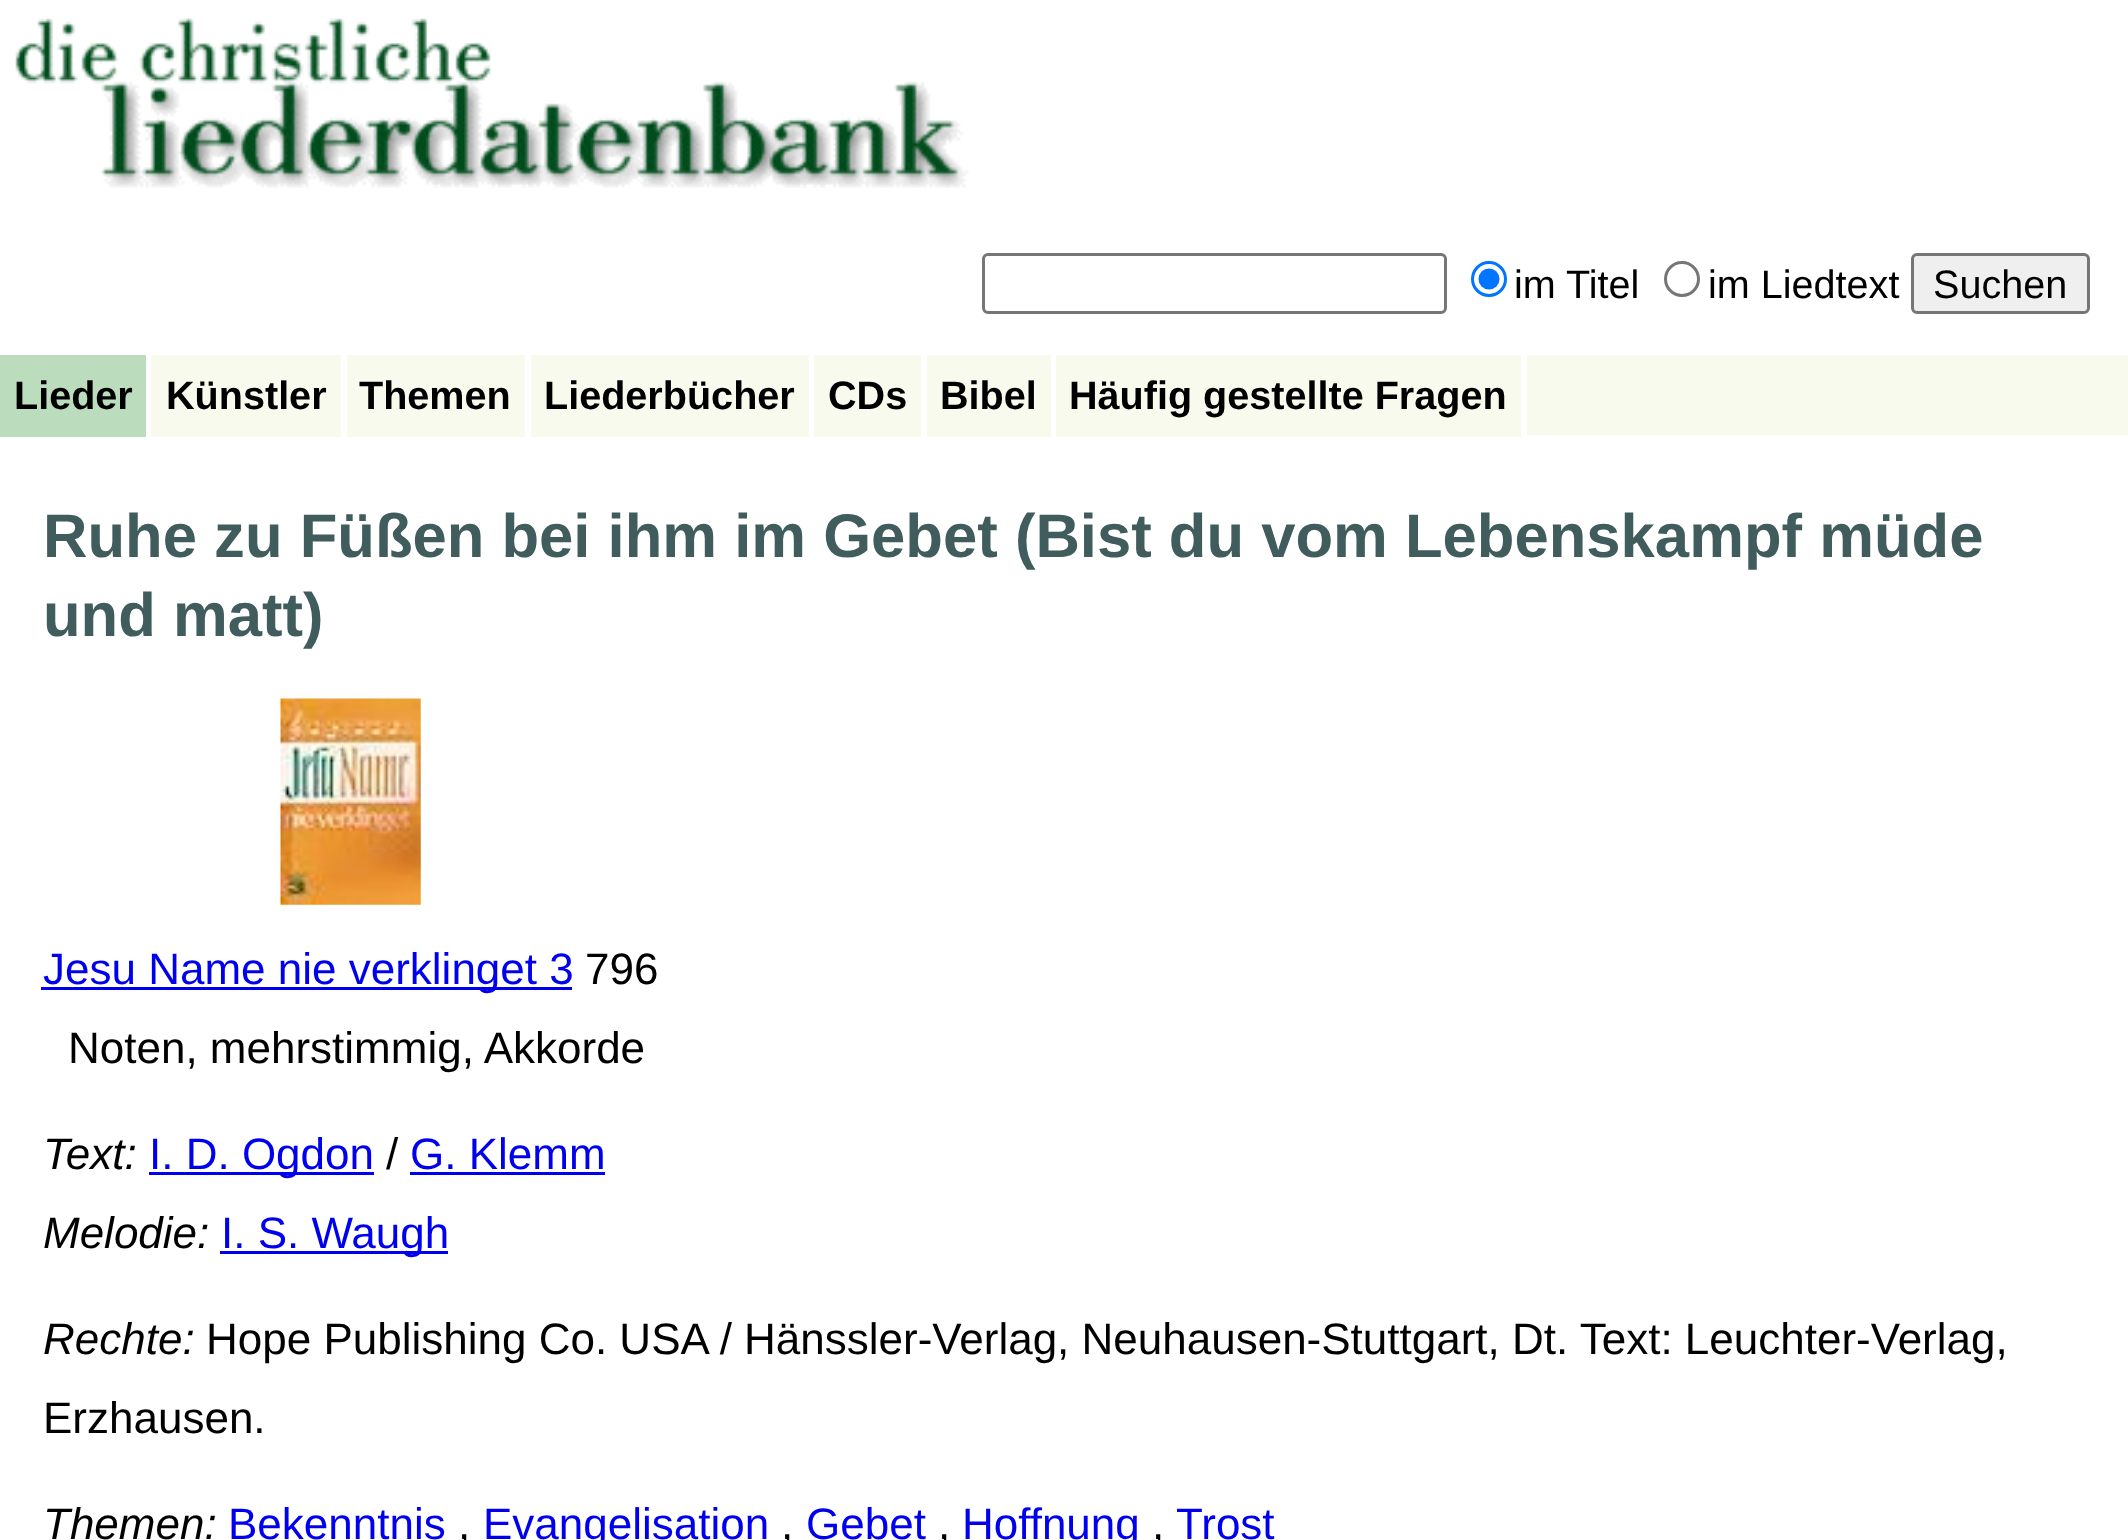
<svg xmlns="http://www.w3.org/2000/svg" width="2128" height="1540">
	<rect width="100%" height="100%" fill="#FFFFFF" />
	<image x="15" y="18" width="954" height="170" href="assets/img1.png" />
	<rect x="983.5" y="254.5" width="462" height="58" rx="4.5" fill="none" stroke="#767676" stroke-width="3" />
	<circle cx="1489" cy="279" r="16.5" fill="none" stroke="#0075FF" stroke-width="3" />
	<circle cx="1489" cy="279" r="10.5" fill="#0075FF" />
	<text x="1514" y="298" font-family="Liberation Sans" font-size="39.6" fill="#000000">im Titel</text>
	<circle cx="1682" cy="279" r="16.5" fill="none" stroke="#767676" stroke-width="3" />
	<text x="1708" y="298" font-family="Liberation Sans" font-size="39.6" fill="#000000">im Liedtext</text>
	<rect x="1912.5" y="254.5" width="176" height="58" rx="4.5" fill="#EFEFEF" stroke="#767676" stroke-width="3" />
	<text x="1933" y="298" font-family="Liberation Sans" font-size="39.6" fill="#000000">Suchen</text>
	<rect x="1527" y="355" width="601" height="80" fill="#F8FAED" />
	<rect x="0" y="355" width="146" height="82" fill="#BBDDBE" />
	<text x="14" y="409" font-family="Liberation Sans" font-size="39.6" font-weight="700" fill="#000000">Lieder</text>
	<rect x="151" y="355" width="190" height="82" fill="#F8FAED" />
	<text x="166" y="409" font-family="Liberation Sans" font-size="39.6" font-weight="700" fill="#000000">Künstler</text>
	<rect x="347" y="355" width="178" height="82" fill="#F8FAED" />
	<text x="359" y="409" font-family="Liberation Sans" font-size="39.6" font-weight="700" fill="#000000">Themen</text>
	<rect x="531" y="355" width="278" height="82" fill="#F8FAED" />
	<text x="544" y="409" font-family="Liberation Sans" font-size="39.6" font-weight="700" fill="#000000">Liederbücher</text>
	<rect x="814" y="355" width="107" height="82" fill="#F8FAED" />
	<text x="828" y="409" font-family="Liberation Sans" font-size="39.6" font-weight="700" fill="#000000">CDs</text>
	<rect x="927" y="355" width="124" height="82" fill="#F8FAED" />
	<text x="940" y="409" font-family="Liberation Sans" font-size="39.6" font-weight="700" fill="#000000">Bibel</text>
	<rect x="1056" y="355" width="465" height="82" fill="#F8FAED" />
	<text x="1069" y="409" font-family="Liberation Sans" font-size="39.6" font-weight="700" fill="#000000">Häufig gestellte Fragen</text>
	<g font-family="Liberation Sans" font-size="61.6" font-weight="700" fill="#405C5D">
		<text x="43" y="557">Ruhe zu Füßen bei ihm im Gebet (Bist du vom Lebenskampf müde</text>
		<text x="43" y="636">und matt)</text>
	</g>
	<image x="280" y="698" width="141" height="207" href="assets/img2.png" />
	<rect x="41" y="987" width="531" height="3" fill="#0000EE" />
	<text x="43" y="984" font-family="Liberation Sans" font-size="44" fill="#0000EE">Jesu Name nie verklinget 3</text>
	<g font-family="Liberation Sans" font-size="44" fill="#000000">
		<text x="585" y="984">796</text>
		<text x="68" y="1063">Noten, mehrstimmig, Akkorde</text>
	</g>
	<text x="43" y="1169" font-family="Liberation Sans" font-size="44" font-style="italic" fill="#000000">Text:</text>
	<rect x="149" y="1172" width="225" height="3" fill="#0000EE" />
	<text x="149" y="1169" font-family="Liberation Sans" font-size="44" fill="#0000EE">I. D. Ogdon</text>
	<text x="386" y="1169" font-family="Liberation Sans" font-size="44" fill="#000000">/</text>
	<text x="410" y="1169" font-family="Liberation Sans" font-size="44" fill="#0000EE">G. Klemm</text>
	<rect x="410" y="1172" width="195" height="3" fill="#0000EE" />
	<text x="43" y="1248" font-family="Liberation Sans" font-size="44" font-style="italic" fill="#000000">Melodie:</text>
	<rect x="220" y="1251" width="228" height="3" fill="#0000EE" />
	<text x="221" y="1248" font-family="Liberation Sans" font-size="44" fill="#0000EE">I. S. Waugh</text>
	<text x="43" y="1354" font-family="Liberation Sans" font-size="44" font-style="italic" fill="#000000">Rechte:</text>
	<g font-family="Liberation Sans" font-size="44" fill="#000000">
		<text x="206" y="1354">Hope Publishing Co. USA / Hänssler-Verlag, Neuhausen-Stuttgart, Dt. Text: Leuchter-Verlag,</text>
		<text x="43" y="1433">Erzhausen.</text>
	</g>
	<text x="43" y="1539" font-family="Liberation Sans" font-size="44" font-style="italic" fill="#000000">Themen:</text>
	<text x="228" y="1539" font-family="Liberation Sans" font-size="44" fill="#0000EE">Bekenntnis</text>
	<text x="458" y="1539" font-family="Liberation Sans" font-size="44" fill="#000000">,</text>
	<text x="483" y="1539" font-family="Liberation Sans" font-size="44" fill="#0000EE">Evangelisation</text>
	<text x="781" y="1539" font-family="Liberation Sans" font-size="44" fill="#000000">,</text>
	<text x="806" y="1539" font-family="Liberation Sans" font-size="44" fill="#0000EE">Gebet</text>
	<text x="938" y="1539" font-family="Liberation Sans" font-size="44" fill="#000000">,</text>
	<text x="962" y="1539" font-family="Liberation Sans" font-size="44" fill="#0000EE">Hoffnung</text>
	<text x="1152" y="1539" font-family="Liberation Sans" font-size="44" fill="#000000">,</text>
	<text x="1176" y="1539" font-family="Liberation Sans" font-size="44" fill="#0000EE">Trost</text>
</svg>
